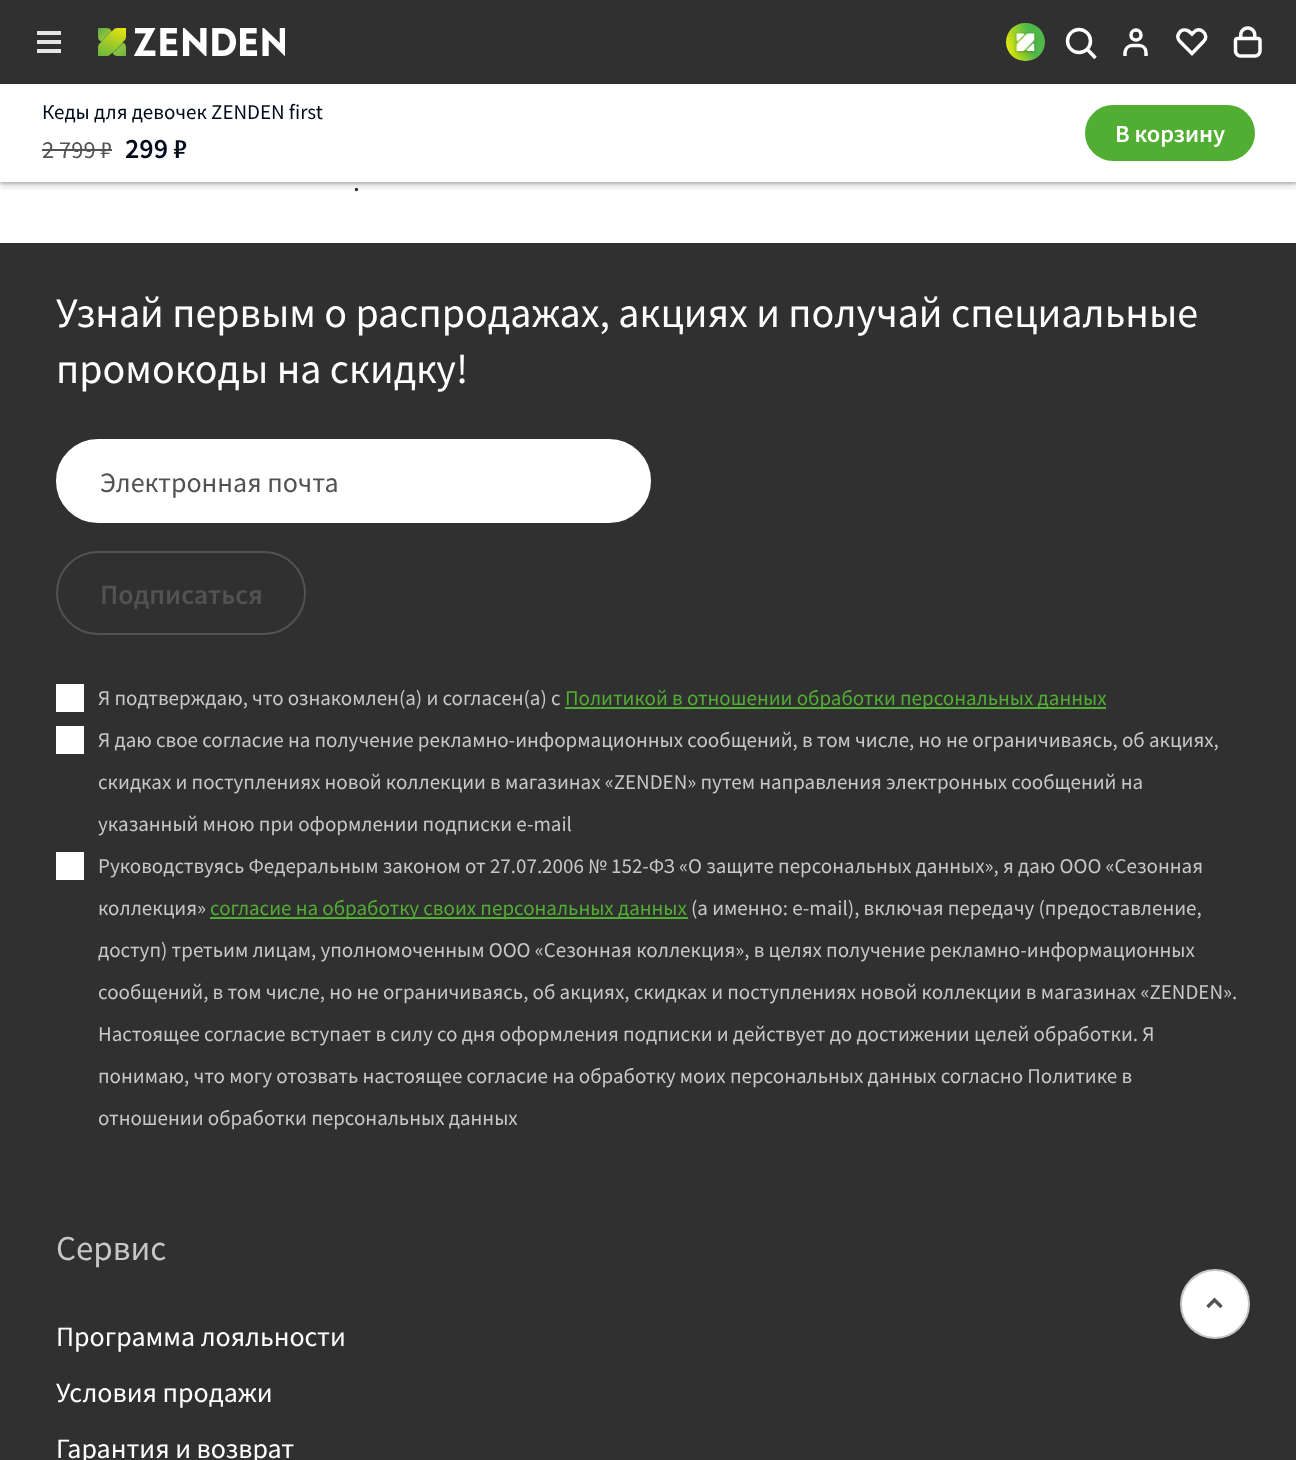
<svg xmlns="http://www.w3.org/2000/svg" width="1296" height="1460">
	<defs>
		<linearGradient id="g1" gradientUnits="userSpaceOnUse" x1="1049" y1="35" x2="1002" y2="49"><stop offset="0.38" stop-color="#50B848" /><stop offset="1" stop-color="#FFF200" /></linearGradient>
	</defs>
	<rect width="100%" height="100%" fill="#FFFFFF" />
	<rect x="0" y="0" width="1296" height="84" fill="#303030" />
	<rect x="37" y="31" width="24" height="4" fill="#E5E5E5" />
	<rect x="37" y="40" width="24" height="4" fill="#E5E5E5" />
	<rect x="37" y="49" width="24" height="4" fill="#E5E5E5" />
	<image x="98" y="28" width="187" height="28" href="assets/img1.png" />
	<rect x="1006" y="23" width="39" height="38" rx="19" fill="url(#g1)" />
	<image x="1014" y="32" width="23" height="26" href="assets/img2.png" />
	<circle cx="1079" cy="41" r="11.5" fill="none" stroke="#FFFFFF" stroke-width="3.5" />
	<path d="M1095.5 58L1087 49" fill="none" stroke="#FFFFFF" stroke-width="3.5" />
	<circle cx="1136" cy="35" r="5" fill="none" stroke="#FFFFFF" stroke-width="3.5" />
	<path d="M1146 56V52.5C1146 48.5 1143 45.5 1139 45.5H1132C1128.5 45.5 1125.5 48.5 1125 52.5V56" fill="none" stroke="#FFFFFF" stroke-width="3.5" />
	<path d="M1180 41.5C1174.5 36.5 1180.5 27.5 1187.5 30.5C1189 31 1190.5 32.5 1192 34L1194 32C1196.5 29 1201 29 1203.5 32C1206.5 34.5 1206.5 39 1203.5 41.5L1192 53.5Z" fill="none" stroke="#FFFFFF" stroke-width="3.5" />
	<image x="1233" y="26" width="29" height="32" href="assets/img3.png" />
	<rect x="0" y="88" width="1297" height="98" fill="#000000" fill-opacity="0.16" filter="blur(3.5px)" />
	<rect x="0" y="86" width="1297" height="98" fill="#000000" fill-opacity="0.16" filter="blur(1px)" />
	<rect x="0" y="84" width="1296" height="98" fill="#FFFFFF" />
	<text x="42" y="119" font-family="Source Sans Pro" font-size="21" fill="#000A19">Кеды для девочек ZENDEN first</text>
	<text x="42" y="158" font-family="Source Sans Pro" font-size="24.5" fill="#525252">2 799 ₽</text>
	<rect x="42" y="149" width="70" height="2" fill="#525252" />
	<text x="125" y="158" font-family="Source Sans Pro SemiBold" font-size="28" font-weight="600" fill="#000A19">299 ₽</text>
	<rect x="1086" y="106" width="168" height="54" rx="27" fill="#52AE32" stroke="#52AE32" stroke-width="2" />
	<text x="1115" y="142" font-family="Source Sans Pro SemiBold" font-size="24.5" font-weight="600" fill="#FFFFFF">В корзину</text>
	<text x="353" y="191" font-family="Source Sans Pro" font-size="28" fill="#303030">.</text>
	<rect x="0" y="243" width="1296" height="1217" fill="#303030" />
	<g font-family="Source Sans Pro" font-size="42" fill="#FFFFFF">
		<text x="56" y="327">Узнай первым о распродажах, акциях и получай специальные</text>
		<text x="56" y="383">промокоды на скидку!</text>
	</g>
	<rect x="57" y="440" width="593" height="82" rx="41" fill="#FFFFFF" stroke="#FFFFFF" stroke-width="2" />
	<text x="100" y="492" font-family="Source Sans Pro" font-size="28" fill="#525252">Электронная почта</text>
	<rect x="57" y="552" width="248" height="82" rx="41" fill="none" stroke="#525252" stroke-width="2" />
	<text x="100" y="604" font-family="Source Sans Pro SemiBold" font-size="28" font-weight="600" fill="#525252">Подписаться</text>
	<rect x="56" y="684" width="28" height="28" fill="#FFFFFF" />
	<text x="98" y="705" font-family="Source Sans Pro" font-size="21" fill="#C7C7C7">Я подтверждаю, что ознакомлен(а) и согласен(а) с</text>
	<rect x="565" y="707" width="541" height="2" fill="#52AE32" />
	<text x="565" y="705" font-family="Source Sans Pro" font-size="21" fill="#52AE32">Политикой в отношении обработки персональных данных</text>
	<rect x="56" y="726" width="28" height="28" fill="#FFFFFF" />
	<g font-family="Source Sans Pro" font-size="21" fill="#C7C7C7">
		<text x="98" y="747">Я даю свое согласие на получение рекламно-информационных сообщений, в том числе, но не ограничиваясь, об акциях,</text>
		<text x="98" y="789">скидках и поступлениях новой коллекции в магазинах «ZENDEN» путем направления электронных сообщений на</text>
		<text x="98" y="831">указанный мною при оформлении подписки e-mail</text>
	</g>
	<rect x="56" y="852" width="28" height="28" fill="#FFFFFF" />
	<g font-family="Source Sans Pro" font-size="21" fill="#C7C7C7">
		<text x="98" y="873">Руководствуясь Федеральным законом от 27.07.2006 № 152-ФЗ «О защите персональных данных», я даю ООО «Сезонная</text>
		<text x="98" y="915">коллекция»</text>
	</g>
	<rect x="210" y="917" width="478" height="2" fill="#52AE32" />
	<text x="210" y="915" font-family="Source Sans Pro" font-size="21" fill="#52AE32">согласие на обработку своих персональных данных</text>
	<g font-family="Source Sans Pro" font-size="21" fill="#C7C7C7">
		<text x="691" y="915">(а именно: e-mail), включая передачу (предоставление,</text>
		<text x="98" y="957">доступ) третьим лицам, уполномоченным ООО «Сезонная коллекция», в целях получение рекламно-информационных</text>
		<text x="98" y="999">сообщений, в том числе, но не ограничиваясь, об акциях, скидках и поступлениях новой коллекции в магазинах «ZENDEN».</text>
		<text x="98" y="1041">Настоящее согласие вступает в силу со дня оформления подписки и действует до достижении целей обработки. Я</text>
		<text x="98" y="1083">понимаю, что могу отозвать настоящее согласие на обработку моих персональных данных согласно Политике в</text>
		<text x="98" y="1125">отношении обработки персональных данных</text>
	</g>
	<text x="56" y="1260" font-family="Source Sans Pro" font-size="35" fill="#C7C7C7">Сервис</text>
	<g font-family="Source Sans Pro" font-size="28" fill="#FFFFFF">
		<text x="56" y="1346">Программа лояльности</text>
		<text x="56" y="1402">Условия продажи</text>
		<text x="56" y="1458">Гарантия и возврат</text>
	</g>
	<circle cx="1215" cy="1304" r="34" fill="#FFFFFF" stroke="#C7C7C7" stroke-width="2" />
	<path d="M1221.5 1307L1214.5 1300L1207.5 1307" fill="none" stroke="#525252" stroke-width="3.5" />
</svg>
